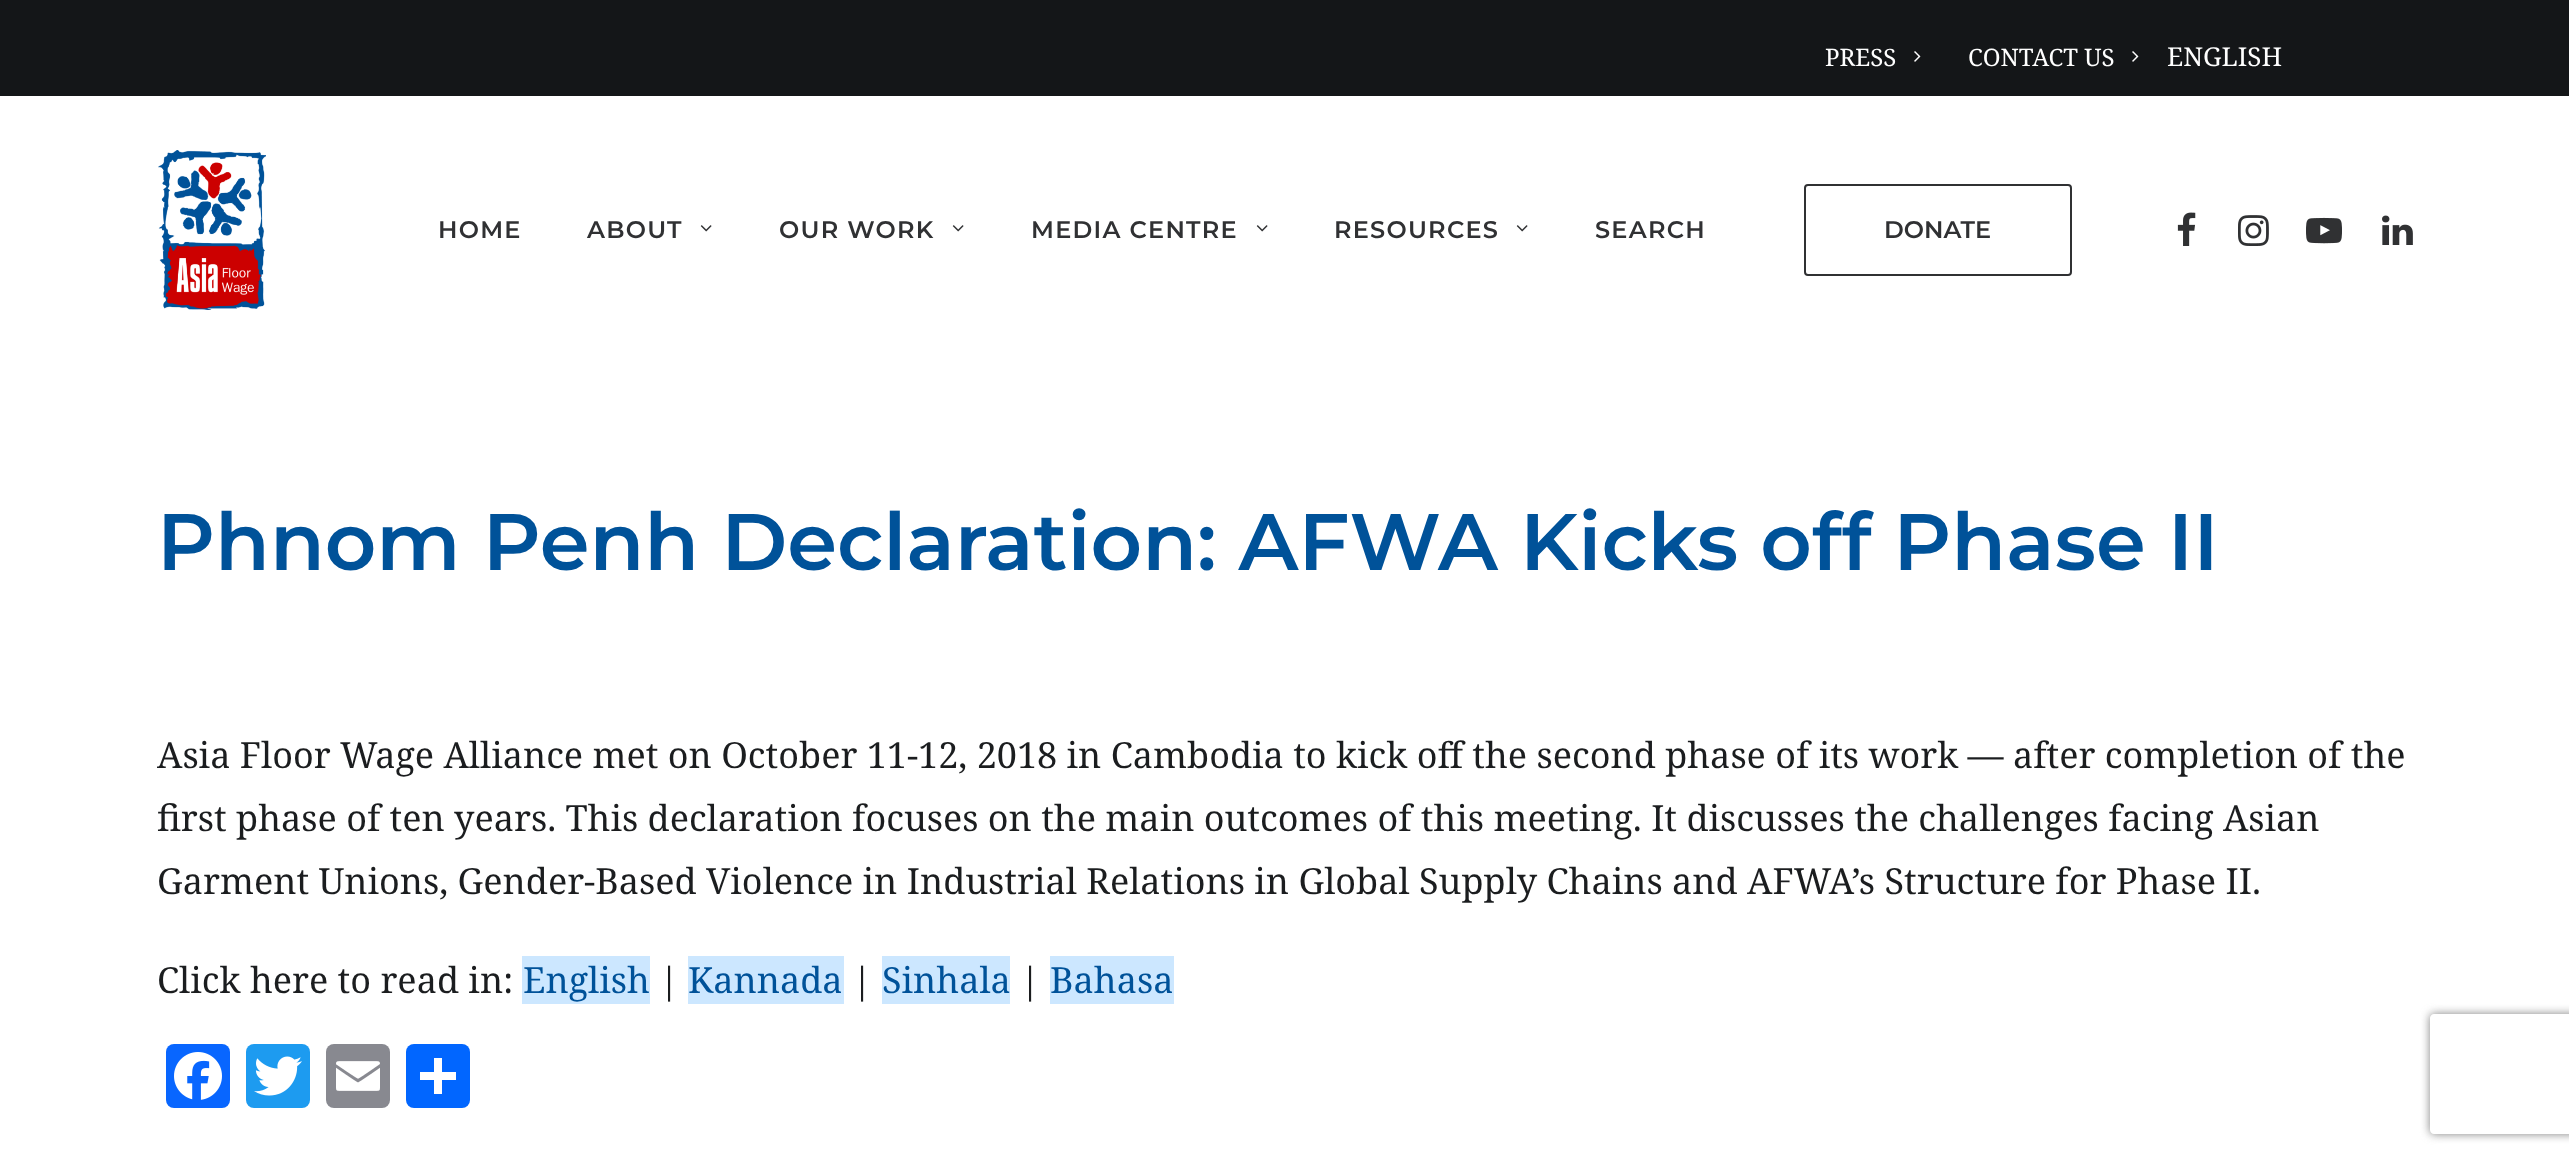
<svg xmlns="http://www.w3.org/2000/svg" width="2569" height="1161">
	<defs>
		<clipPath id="clip1"><path d="M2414 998H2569V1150H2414ZM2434 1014H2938C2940 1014 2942 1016 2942 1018V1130C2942 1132 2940 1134 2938 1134H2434C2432 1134 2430 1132 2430 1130V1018C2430 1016 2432 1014 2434 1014Z" clip-rule="evenodd" /></clipPath>
	</defs>
	<rect width="100%" height="100%" fill="#FFFFFF" />
	<rect x="0" y="0" width="2569" height="96" fill="#141618" />
	<text x="1825" y="66" font-family="Noto Serif" font-size="24" fill="#FFFFFF">PRESS</text>
	<image x="1914" y="51" width="7" height="11" href="assets/img1.png" />
	<text x="1968" y="66" font-family="Noto Serif" font-size="24" fill="#FFFFFF">CONTACT US</text>
	<image x="2132" y="51" width="7" height="11" href="assets/img1.png" />
	<text x="2167" y="66" font-family="Noto Serif" font-size="26" fill="#FFFFFF">ENGLISH</text>
	<image x="158" y="150" width="108" height="160" href="assets/img2.png" />
	<g font-family="Montserrat" font-size="24" font-weight="600" letter-spacing="1.25" fill="#303133">
		<text x="438" y="238">HOME</text>
		<text x="587" y="238">ABOUT</text>
	</g>
	<image x="700" y="225" width="12" height="7" href="assets/img3.png" />
	<text x="779" y="238" font-family="Montserrat" font-size="24" font-weight="600" letter-spacing="1.25" fill="#303133">OUR WORK</text>
	<image x="952" y="225" width="12" height="7" href="assets/img3.png" />
	<text x="1031" y="238" font-family="Montserrat" font-size="24" font-weight="600" letter-spacing="1.25" fill="#303133">MEDIA CENTRE</text>
	<image x="1256" y="225" width="12" height="7" href="assets/img3.png" />
	<text x="1334" y="238" font-family="Montserrat" font-size="24" font-weight="600" letter-spacing="1.25" fill="#303133">RESOURCES</text>
	<image x="1516" y="225" width="12" height="7" href="assets/img3.png" />
	<text x="1595" y="238" font-family="Montserrat" font-size="24" font-weight="600" letter-spacing="1.25" fill="#303133">SEARCH</text>
	<rect x="1805" y="185" width="266" height="90" rx="3" fill="none" stroke="#303133" stroke-width="2" />
	<text x="1884" y="238" font-family="Montserrat" font-size="24" font-weight="600" fill="#303133">DONATE</text>
	<image x="2177" y="212" width="19" height="34" href="assets/img4.png" />
	<image x="2238" y="215" width="31" height="31" href="assets/img5.png" />
	<image x="2306" y="217" width="36" height="27" href="assets/img6.png" />
	<image x="2382" y="215" width="31" height="30" href="assets/img7.png" />
	<text x="157" y="570" font-family="Montserrat" font-size="80" font-weight="600" fill="#005299">Phnom Penh Declaration: AFWA Kicks off Phase II</text>
	<g font-family="Noto Serif" font-size="36" fill="#1B1D1F">
		<text x="157" y="768">Asia Floor Wage Alliance met on October 11-12, 2018 in Cambodia to kick off the second phase of its work — after completion of the</text>
		<text x="157" y="831">first phase of ten years. This declaration focuses on the main outcomes of this meeting. It discusses the challenges facing Asian</text>
		<text x="157" y="894">Garment Unions, Gender-Based Violence in Industrial Relations in Global Supply Chains and AFWA’s Structure for Phase II.</text>
		<text x="157" y="993">Click here to read in:</text>
	</g>
	<rect x="522" y="956" width="128" height="48" fill="#CCE7FF" />
	<text x="523" y="993" font-family="Noto Serif" font-size="36" fill="#005299">English</text>
	<text x="659" y="993" font-family="Noto Serif" font-size="36" fill="#1B1D1F">|</text>
	<rect x="688" y="956" width="156" height="48" fill="#CCE7FF" />
	<text x="688" y="993" font-family="Noto Serif" font-size="36" fill="#005299">Kannada</text>
	<text x="852" y="993" font-family="Noto Serif" font-size="36" fill="#1B1D1F">|</text>
	<rect x="882" y="956" width="128" height="48" fill="#CCE7FF" />
	<text x="882" y="993" font-family="Noto Serif" font-size="36" fill="#005299">Sinhala</text>
	<text x="1020" y="993" font-family="Noto Serif" font-size="36" fill="#1B1D1F">|</text>
	<rect x="1050" y="956" width="124" height="48" fill="#CCE7FF" />
	<text x="1050" y="993" font-family="Noto Serif" font-size="36" fill="#005299">Bahasa</text>
	<rect x="166" y="1044" width="64" height="64" rx="8" fill="#0866FF" />
	<image x="174" y="1052" width="48" height="48" href="assets/img8.png" />
	<rect x="246" y="1044" width="64" height="64" rx="8" fill="#1D9BF0" />
	<image x="254" y="1056" width="48" height="40" href="assets/img9.png" />
	<rect x="326" y="1044" width="64" height="64" rx="8" fill="#888990" />
	<image x="336" y="1061" width="44" height="30" href="assets/img10.png" />
	<rect x="406" y="1044" width="64" height="64" rx="8" fill="#0166FF" />
	<rect x="434" y="1058" width="8" height="36" fill="#FFFFFF" />
	<rect x="420" y="1072" width="36" height="8" fill="#FFFFFF" />
	<g clip-path="url(#clip1)">
		<rect x="2430" y="1014" width="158" height="120" rx="4" fill="#808080" filter="blur(5px)" />
	</g>
</svg>
